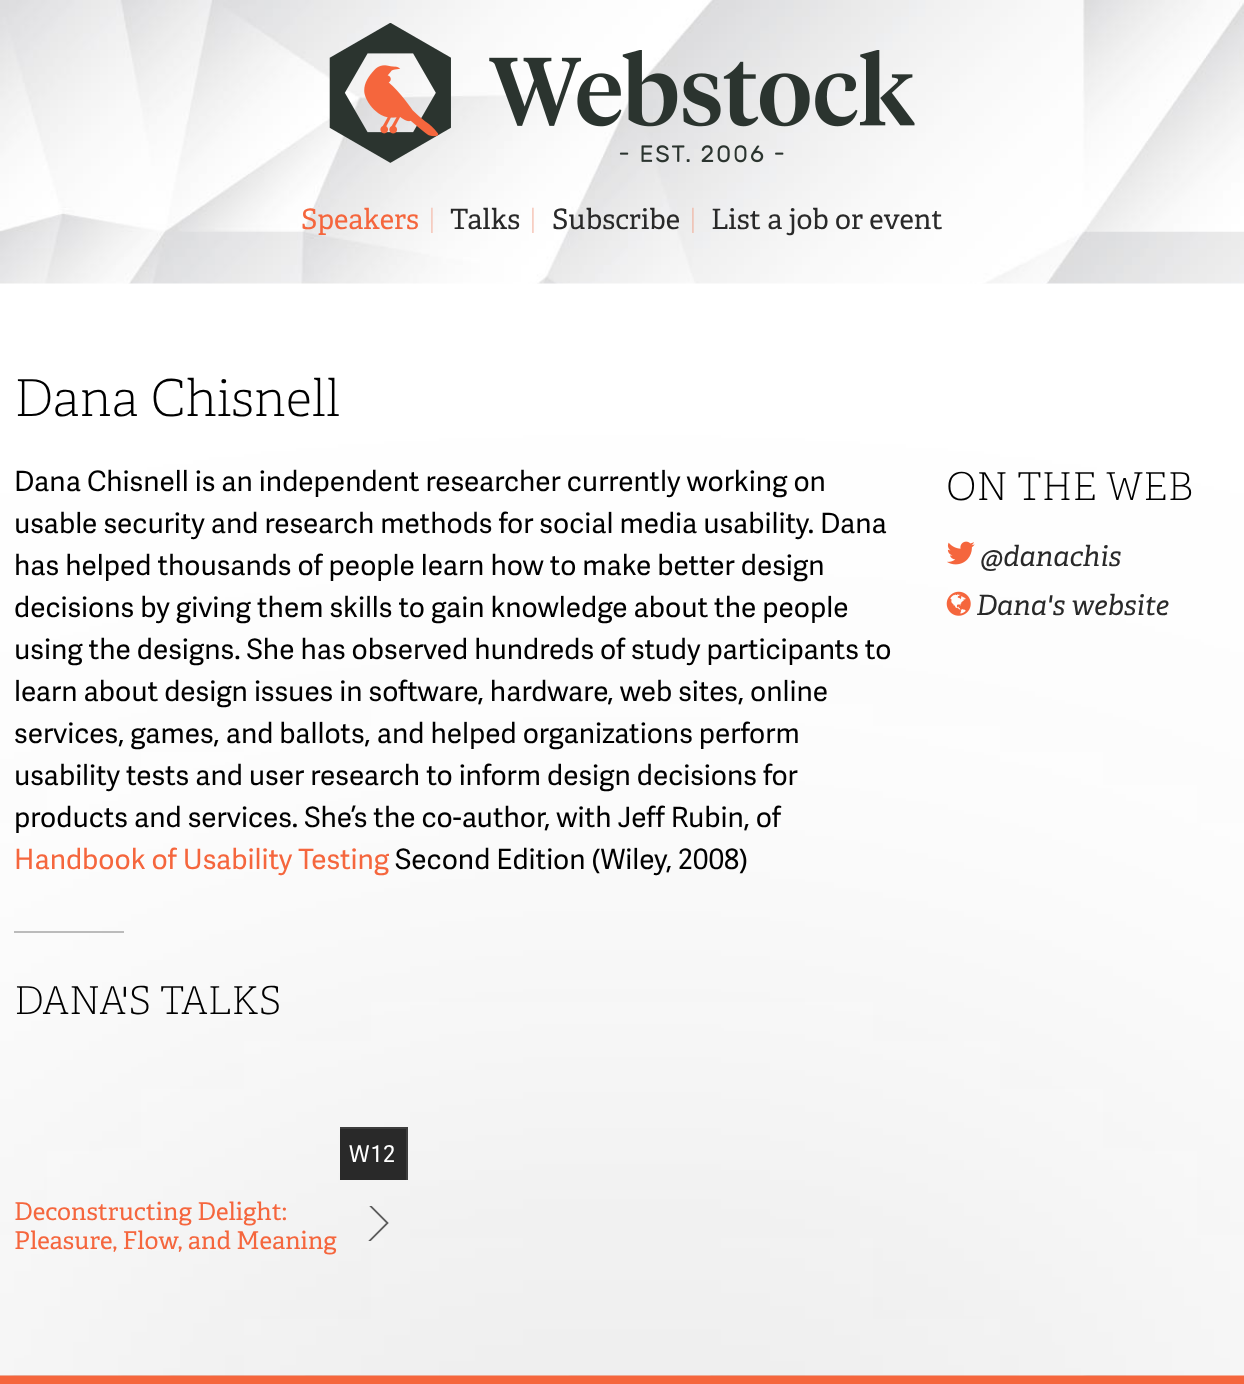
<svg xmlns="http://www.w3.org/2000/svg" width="1244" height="1384">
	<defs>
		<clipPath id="clip1"><rect x="364" y="1206" width="44" height="35" /></clipPath>
	</defs>
	<rect width="100%" height="100%" fill="#FFFFFF" />
	<image x="0" y="0" width="1244" height="284" href="assets/img2.png" />
	<rect x="0" y="1376" width="1244" height="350" fill="#292929" fill-opacity="0.3" filter="blur(437.5px)" />
	<image x="0" y="1375" width="1244" height="1" href="assets/img1.png" />
	<rect x="0" y="1376" width="1244" height="8" fill="#F5663D" />
	<image x="329" y="23" width="586" height="140" href="assets/img3.png" />
	<text x="301" y="229" font-family="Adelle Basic" font-size="28" fill="#F5663D">Speakers</text>
	<text x="428" y="229" font-family="Adelle Basic" font-size="28" font-weight="100" fill="#F5BCAC">|</text>
	<text x="450" y="229" font-family="Adelle Basic" font-size="28" fill="#292929">Talks</text>
	<text x="529" y="229" font-family="Adelle Basic" font-size="28" font-weight="100" fill="#F5BCAC">|</text>
	<text x="552" y="229" font-family="Adelle Basic" font-size="28" fill="#292929">Subscribe</text>
	<text x="689" y="229" font-family="Adelle Basic" font-size="28" font-weight="100" fill="#F0B7A6">|</text>
	<text x="711" y="229" font-family="Adelle Basic" font-size="28" fill="#292929">List a job or event</text>
	<text x="14" y="416" font-family="Adelle Basic" font-size="50.75" font-weight="100" fill="#000000">Dana Chisnell</text>
	<g font-family="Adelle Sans" font-size="28" fill="#000000">
		<text x="14" y="491">Dana Chisnell is an independent researcher currently working on</text>
		<text x="14" y="533">usable security and research methods for social media usability. Dana</text>
		<text x="14" y="575">has helped thousands of people learn how to make better design</text>
		<text x="14" y="617">decisions by giving them skills to gain knowledge about the people</text>
		<text x="14" y="659">using the designs. She has observed hundreds of study participants to</text>
		<text x="14" y="701">learn about design issues in software, hardware, web sites, online</text>
		<text x="14" y="743">services, games, and ballots, and helped organizations perform</text>
		<text x="14" y="785">usability tests and user research to inform design decisions for</text>
		<text x="14" y="827">products and services. She’s the co-author, with Jeff Rubin, of</text>
	</g>
	<text x="14" y="869" font-family="Adelle Sans" font-size="28" fill="#F5663D">Handbook of Usability Testing</text>
	<text x="395" y="869" font-family="Adelle Sans" font-size="28" fill="#000000">Second Edition (Wiley, 2008)</text>
	<rect x="14" y="931" width="110" height="2" fill="#BBBBBB" />
	<text x="14" y="1014" font-family="Adelle Basic" font-size="38.5" font-weight="100" fill="#000000">DANA'S TALKS</text>
	<rect x="340" y="1129" width="66" height="51" fill="#292929" />
	<rect x="340" y="1127" width="68" height="2" fill="#3D3D3D" />
	<rect x="406" y="1127" width="2" height="53" fill="#3D3D3D" />
	<text x="349" y="1162" font-family="Adelle Sans" font-size="23" letter-spacing="2" fill="#FFFFFF">W12</text>
	<g font-family="Adelle Basic" font-size="24.5" fill="#F5663D">
		<text x="14" y="1220">Deconstructing Delight:</text>
		<text x="14" y="1249">Pleasure, Flow, and Meaning</text>
	</g>
	<g clip-path="url(#clip1)">
		<path d="M364 1199.5L387.5 1223L364 1246.5L340.5 1223Z" fill="none" stroke="#5C5C5C" stroke-width="1.8" />
	</g>
	<text x="946" y="500" font-family="Adelle Basic" font-size="38.5" font-weight="100" fill="#000000">ON THE WEB</text>
	<image x="947" y="541" width="28" height="24" href="assets/img4.png" />
	<text x="980" y="566" font-family="Adelle Basic" font-size="28" font-style="italic" fill="#292929">@danachis</text>
	<image x="946" y="591" width="25" height="25" href="assets/img5.png" />
	<text x="976" y="615" font-family="Adelle Basic" font-size="28" font-style="italic" fill="#292929">Dana's website</text>
</svg>
